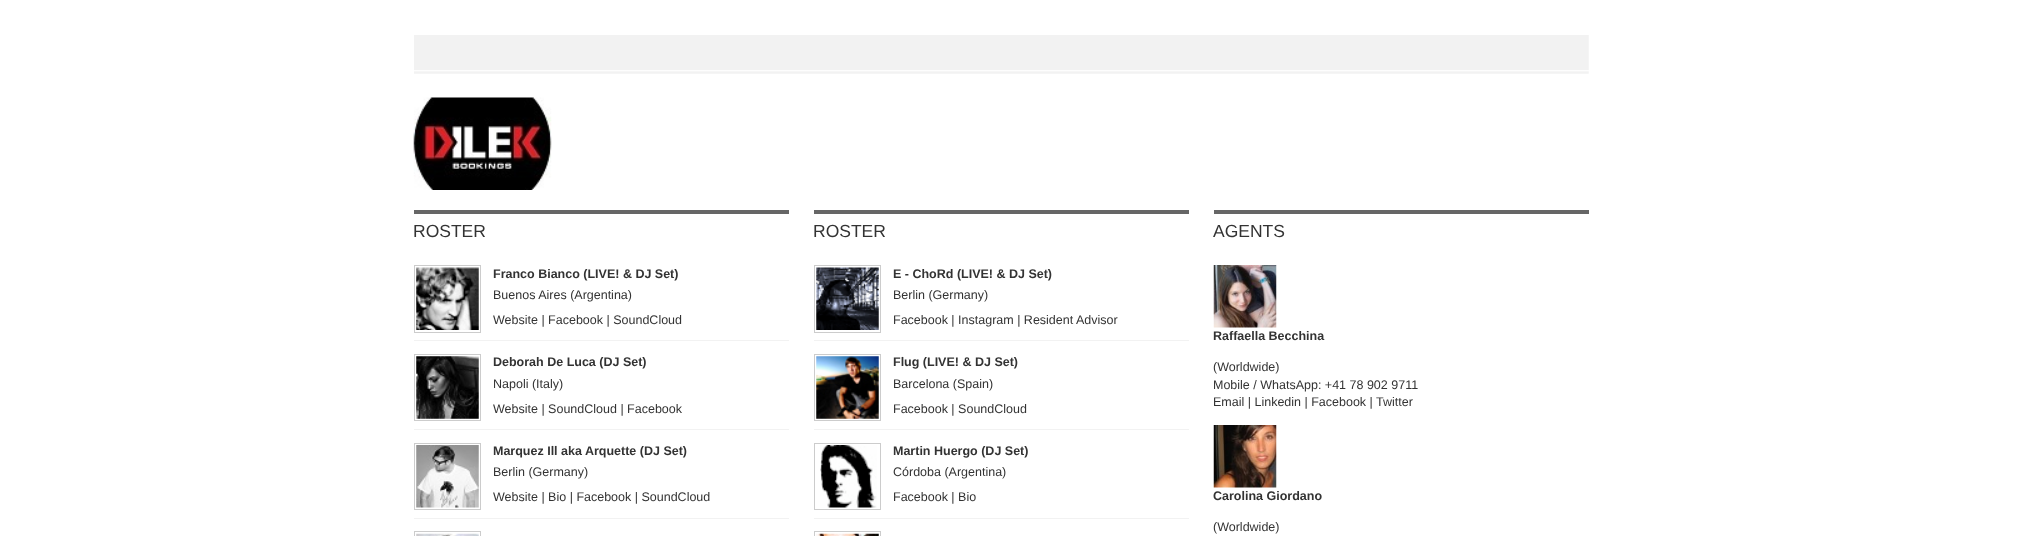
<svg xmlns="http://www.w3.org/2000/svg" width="2026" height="536">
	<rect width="100%" height="100%" fill="#FFFFFF" />
	<image x="414" y="35" width="1175" height="39" href="assets/img1.png" />
	<image x="413" y="97" width="139" height="93" href="assets/img2.png" />
	<rect x="414" y="210" width="375" height="4" fill="#666666" />
	<text x="413" y="237" font-family="Liberation Sans" font-size="17.5" fill="#333333">ROSTER</text>
	<rect x="414" y="340" width="375" height="1" fill="#F2F2F2" />
	<rect x="414.5" y="265.5" width="66" height="67" fill="none" stroke="#CCCCCC" />
	<image x="416" y="267" width="63" height="63" href="assets/img3.png" />
	<text x="493" y="278" font-family="Liberation Sans" font-size="12.5" font-weight="700" fill="#333333">Franco Bianco (LIVE! &amp; DJ Set)</text>
	<g font-family="Liberation Sans" font-size="12.5" fill="#333333">
		<text x="493" y="299">Buenos Aires (Argentina)</text>
		<text x="493" y="324">Website | Facebook | SoundCloud</text>
	</g>
	<rect x="414" y="429" width="375" height="1" fill="#F2F2F2" />
	<rect x="414.5" y="354.5" width="66" height="66" fill="none" stroke="#CCCCCC" />
	<image x="416" y="356" width="63" height="63" href="assets/img4.png" />
	<text x="493" y="366" font-family="Liberation Sans" font-size="12.5" font-weight="700" fill="#333333">Deborah De Luca (DJ Set)</text>
	<g font-family="Liberation Sans" font-size="12.5" fill="#333333">
		<text x="493" y="388">Napoli (Italy)</text>
		<text x="493" y="413">Website | SoundCloud | Facebook</text>
	</g>
	<rect x="414" y="518" width="375" height="1" fill="#F2F2F2" />
	<rect x="414.5" y="443.5" width="66" height="66" fill="none" stroke="#CCCCCC" />
	<image x="416" y="445" width="63" height="63" href="assets/img5.png" />
	<text x="493" y="455" font-family="Liberation Sans" font-size="12.5" font-weight="700" fill="#333333">Marquez Ill aka Arquette (DJ Set)</text>
	<g font-family="Liberation Sans" font-size="12.5" fill="#333333">
		<text x="493" y="476">Berlin (Germany)</text>
		<text x="493" y="501">Website | Bio | Facebook | SoundCloud</text>
	</g>
	<rect x="414.5" y="531.5" width="66" height="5" fill="none" stroke="#CCCCCC" />
	<image x="416" y="533" width="63" height="3" href="assets/img6.png" />
	<rect x="814" y="210" width="375" height="4" fill="#666666" />
	<text x="813" y="237" font-family="Liberation Sans" font-size="17.5" fill="#333333">ROSTER</text>
	<rect x="814" y="340" width="375" height="1" fill="#F2F2F2" />
	<rect x="814.5" y="265.5" width="66" height="67" fill="none" stroke="#CCCCCC" />
	<image x="816" y="267" width="63" height="63" href="assets/img7.png" />
	<text x="893" y="278" font-family="Liberation Sans" font-size="12.5" font-weight="700" fill="#333333">E - ChoRd (LIVE! &amp; DJ Set)</text>
	<g font-family="Liberation Sans" font-size="12.5" fill="#333333">
		<text x="893" y="299">Berlin (Germany)</text>
		<text x="893" y="324">Facebook | Instagram | Resident Advisor</text>
	</g>
	<rect x="814" y="429" width="375" height="1" fill="#F2F2F2" />
	<rect x="814.5" y="354.5" width="66" height="66" fill="none" stroke="#CCCCCC" />
	<image x="816" y="356" width="63" height="63" href="assets/img8.png" />
	<text x="893" y="366" font-family="Liberation Sans" font-size="12.5" font-weight="700" fill="#333333">Flug (LIVE! &amp; DJ Set)</text>
	<g font-family="Liberation Sans" font-size="12.5" fill="#333333">
		<text x="893" y="388">Barcelona (Spain)</text>
		<text x="893" y="413">Facebook | SoundCloud</text>
	</g>
	<rect x="814" y="518" width="375" height="1" fill="#F2F2F2" />
	<rect x="814.5" y="443.5" width="66" height="66" fill="none" stroke="#CCCCCC" />
	<image x="820" y="445" width="57" height="63" href="assets/img9.png" />
	<text x="893" y="455" font-family="Liberation Sans" font-size="12.5" font-weight="700" fill="#333333">Martin Huergo (DJ Set)</text>
	<g font-family="Liberation Sans" font-size="12.5" fill="#333333">
		<text x="893" y="476">Córdoba (Argentina)</text>
		<text x="893" y="501">Facebook | Bio</text>
	</g>
	<rect x="814.5" y="531.5" width="66" height="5" fill="none" stroke="#CCCCCC" />
	<image x="816" y="533" width="63" height="3" href="assets/img10.png" />
	<rect x="1214" y="210" width="375" height="4" fill="#666666" />
	<text x="1213" y="237" font-family="Liberation Sans" font-size="17.5" fill="#333333">AGENTS</text>
	<image x="1213" y="265" width="64" height="63" href="assets/img11.png" />
	<text x="1213" y="340" font-family="Liberation Sans" font-size="12.5" font-weight="700" fill="#333333">Raffaella Becchina</text>
	<g font-family="Liberation Sans" font-size="12.5" fill="#333333">
		<text x="1213" y="371">(Worldwide)</text>
		<text x="1213" y="389">Mobile / WhatsApp: +41 78 902 9711</text>
		<text x="1213" y="406">Email | Linkedin | Facebook | Twitter</text>
	</g>
	<image x="1213" y="425" width="64" height="63" href="assets/img12.png" />
	<text x="1213" y="500" font-family="Liberation Sans" font-size="12.5" font-weight="700" fill="#333333">Carolina Giordano</text>
	<text x="1213" y="531" font-family="Liberation Sans" font-size="12.5" fill="#333333">(Worldwide)</text>
</svg>
